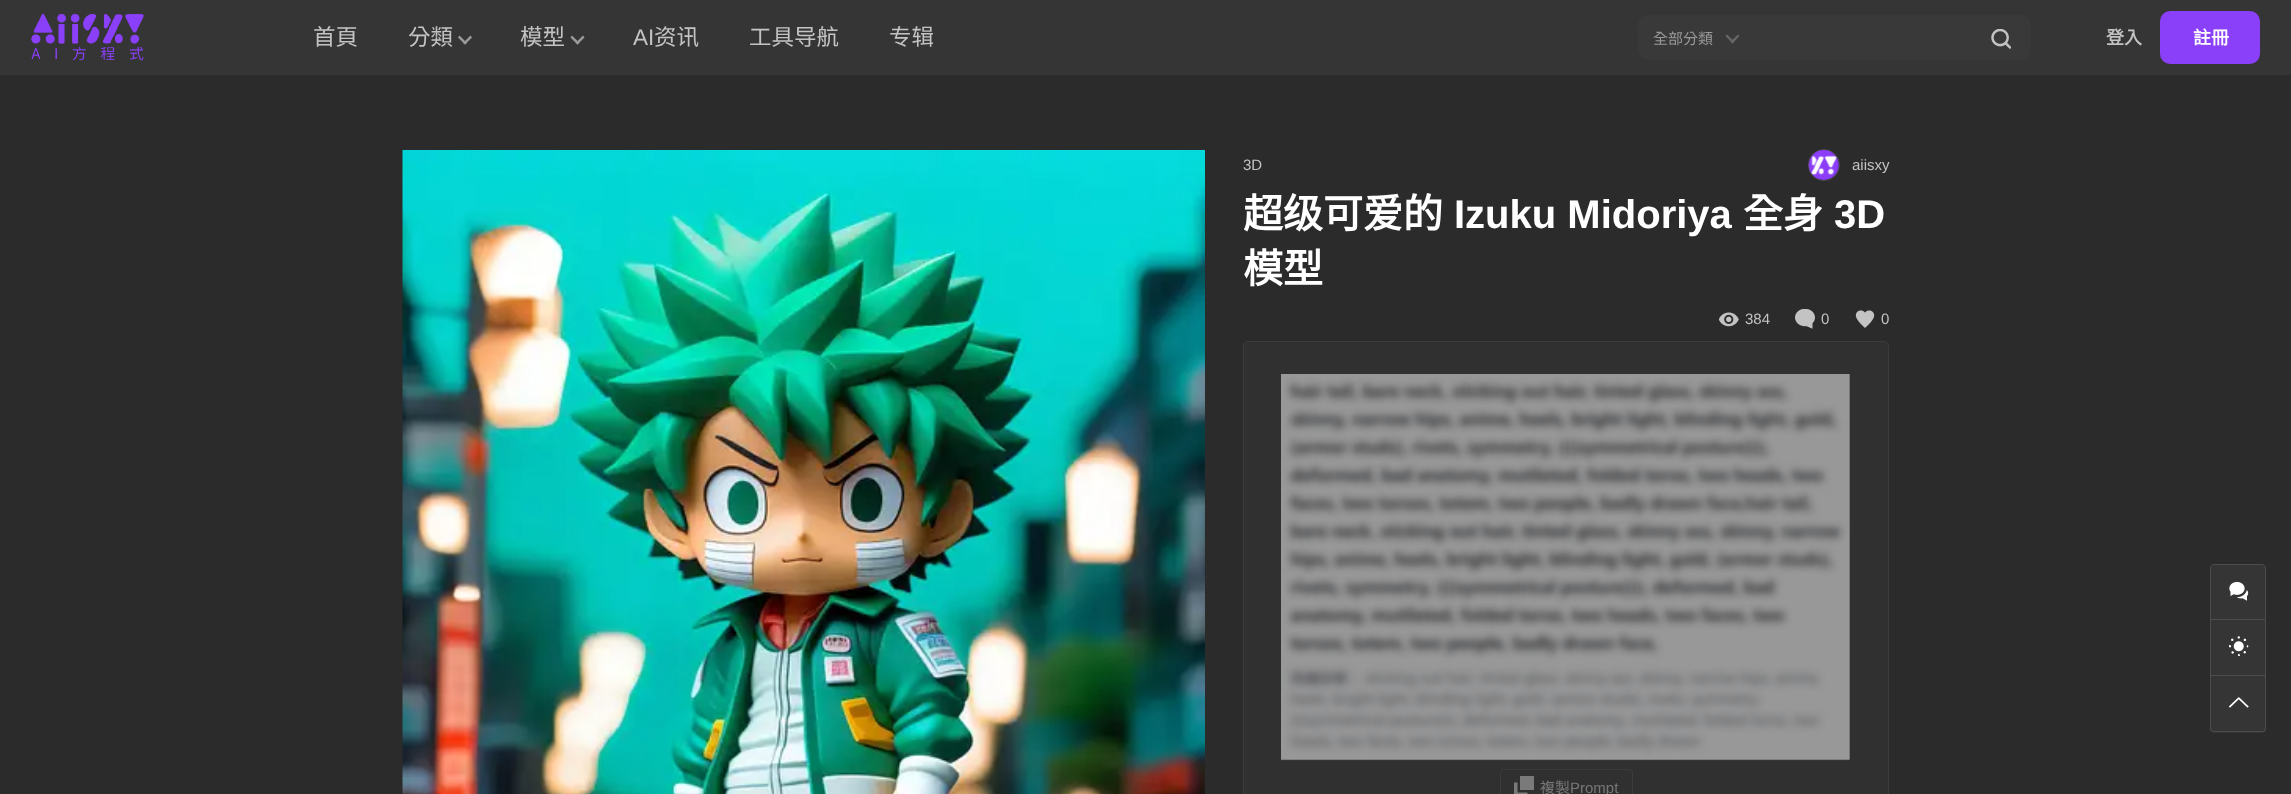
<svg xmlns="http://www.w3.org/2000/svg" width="2291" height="794">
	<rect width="100%" height="100%" fill="#2B2B2B" />
	<rect x="0" y="0" width="2291" height="75" fill="#353535" />
	<image x="31" y="13" width="113" height="48" href="assets/img1.png" />
	<g font-family="Noto Sans CJK TC" font-size="22.5" fill="#C3C3C3">
		<text x="313" y="45">首頁</text>
		<text x="408" y="45">分類</text>
	</g>
	<path d="M463 43L470.5 35.5L472 37.5L465 44.5Z" fill="#999999" />
	<path d="M458 37.5L459.5 35.5L467 43L465 44.5Z" fill="#999999" />
	<text x="520" y="45" font-family="Noto Sans CJK TC" font-size="22.5" fill="#C3C3C3">模型</text>
	<path d="M575.5 43L583 35.5L584.5 37.5L577.5 44.5Z" fill="#999999" />
	<path d="M570.5 37.5L572 35.5L579.5 43L577.5 44.5Z" fill="#999999" />
	<text x="633" y="45" font-family="Liberation Sans" font-size="22.5" fill="#C3C3C3">AI</text>
	<g font-family="Noto Sans CJK TC" font-size="22.5" fill="#C3C3C3">
		<text x="654" y="45">资讯</text>
		<text x="749" y="45">工具导航</text>
		<text x="889" y="45">专辑</text>
	</g>
	<rect x="1638" y="15" width="393" height="45" rx="10" fill="#393939" />
	<text x="1653" y="44" font-family="Noto Sans CJK TC" font-size="15" fill="#999999">全部分類</text>
	<path d="M1738 34.5L1739.5 36L1732.5 43.5L1730.5 41.5Z" fill="#666666" />
	<path d="M1727 34.5L1734.5 41.5L1732.5 43.5L1725.5 36Z" fill="#666666" />
	<image x="1991" y="29" width="20" height="20" href="assets/img2.png" />
	<text x="2106" y="44" font-family="Noto Sans CJK TC" font-size="18" font-weight="700" fill="#C3C3C3">登入</text>
	<rect x="2160" y="11" width="100" height="53" rx="10" fill="#8A3FF8" />
	<text x="2193" y="44" font-family="Noto Sans CJK TC" font-size="18" font-weight="700" fill="#FFFFFF">註冊</text>
	<image x="402" y="150" width="803" height="644" href="assets/img3.png" />
	<text x="1243" y="170" font-family="Liberation Sans" font-size="15" fill="#C3C3C3">3D</text>
	<circle cx="1824" cy="165" r="15.5" fill="none" stroke="#4D4D4D" />
	<image x="1808" y="150" width="31" height="30" href="assets/img4.png" />
	<text x="1852" y="170" font-family="Liberation Sans" font-size="15" fill="#C3C3C3">aiisxy</text>
	<text x="1243" y="228" font-family="Noto Sans CJK TC" font-size="40" font-weight="700" fill="#FFFFFF">超级可爱的</text>
	<text x="1454" y="228" font-family="Liberation Sans" font-size="40" font-weight="700" fill="#FFFFFF">Izuku Midoriya</text>
	<text x="1743" y="228" font-family="Noto Sans CJK TC" font-size="40" font-weight="700" fill="#FFFFFF">全身</text>
	<text x="1834" y="228" font-family="Liberation Sans" font-size="40" font-weight="700" fill="#FFFFFF">3D</text>
	<text x="1243" y="283" font-family="Noto Sans CJK TC" font-size="40" font-weight="700" fill="#FFFFFF">模型</text>
	<image x="1719" y="312" width="20" height="15" href="assets/img5.png" />
	<text x="1745" y="324" font-family="Liberation Sans" font-size="15" fill="#C3C3C3">384</text>
	<image x="1795" y="309" width="20" height="20" href="assets/img6.png" />
	<text x="1821" y="324" font-family="Liberation Sans" font-size="15" fill="#C3C3C3">0</text>
	<image x="1855" y="310" width="20" height="18" href="assets/img7.png" />
	<text x="1881" y="324" font-family="Liberation Sans" font-size="15" fill="#C3C3C3">0</text>
	<rect x="1243.5" y="341.5" width="645" height="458" rx="4.5" fill="#303030" stroke="#3C3C3C" />
	<image x="1281" y="374" width="569" height="387" href="assets/img8.png" />
	<rect x="1500.5" y="769.5" width="132" height="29" rx="3.5" fill="none" stroke="#3C3C3C" />
	<image x="1514" y="776" width="20" height="18" href="assets/img9.png" />
	<text x="1540" y="793" font-family="Noto Sans CJK TC" font-size="15" fill="#777777">複製</text>
	<text x="1570" y="793" font-family="Liberation Sans" font-size="15" fill="#777777">Prompt</text>
	<path d="M2214 564.5H2262C2264 564.5 2265.5 566 2265.5 568V619.5H2210.5V568C2210.5 566 2212 564.5 2214 564.5Z" fill="#353535" stroke="#4D4D4D" />
	<image x="2229" y="581" width="20" height="20" href="assets/img10.png" />
	<rect x="2211" y="620" width="54" height="55" fill="#353535" />
	<rect x="2265" y="620" width="1" height="56" fill="#4D4D4D" />
	<rect x="2210" y="675" width="56" height="1" fill="#4D4D4D" />
	<rect x="2210" y="620" width="1" height="56" fill="#4D4D4D" />
	<image x="2229" y="636" width="20" height="20" href="assets/img11.png" />
	<path d="M2210 676H2266V729C2266 731 2264 733 2262 733H2214C2212 733 2210 731 2210 729Z" fill="#353535" />
	<path d="M2210 676H2266V729C2266 731 2265 732 2262 732H2214C2212 732 2210 731 2210 729ZM2211 676H2265V729L2264 731H2263H2214H2212L2211 729Z" fill="#4D4D4D" fill-rule="evenodd" />
	<image x="2229" y="697" width="20" height="11" href="assets/img12.png" />
</svg>
